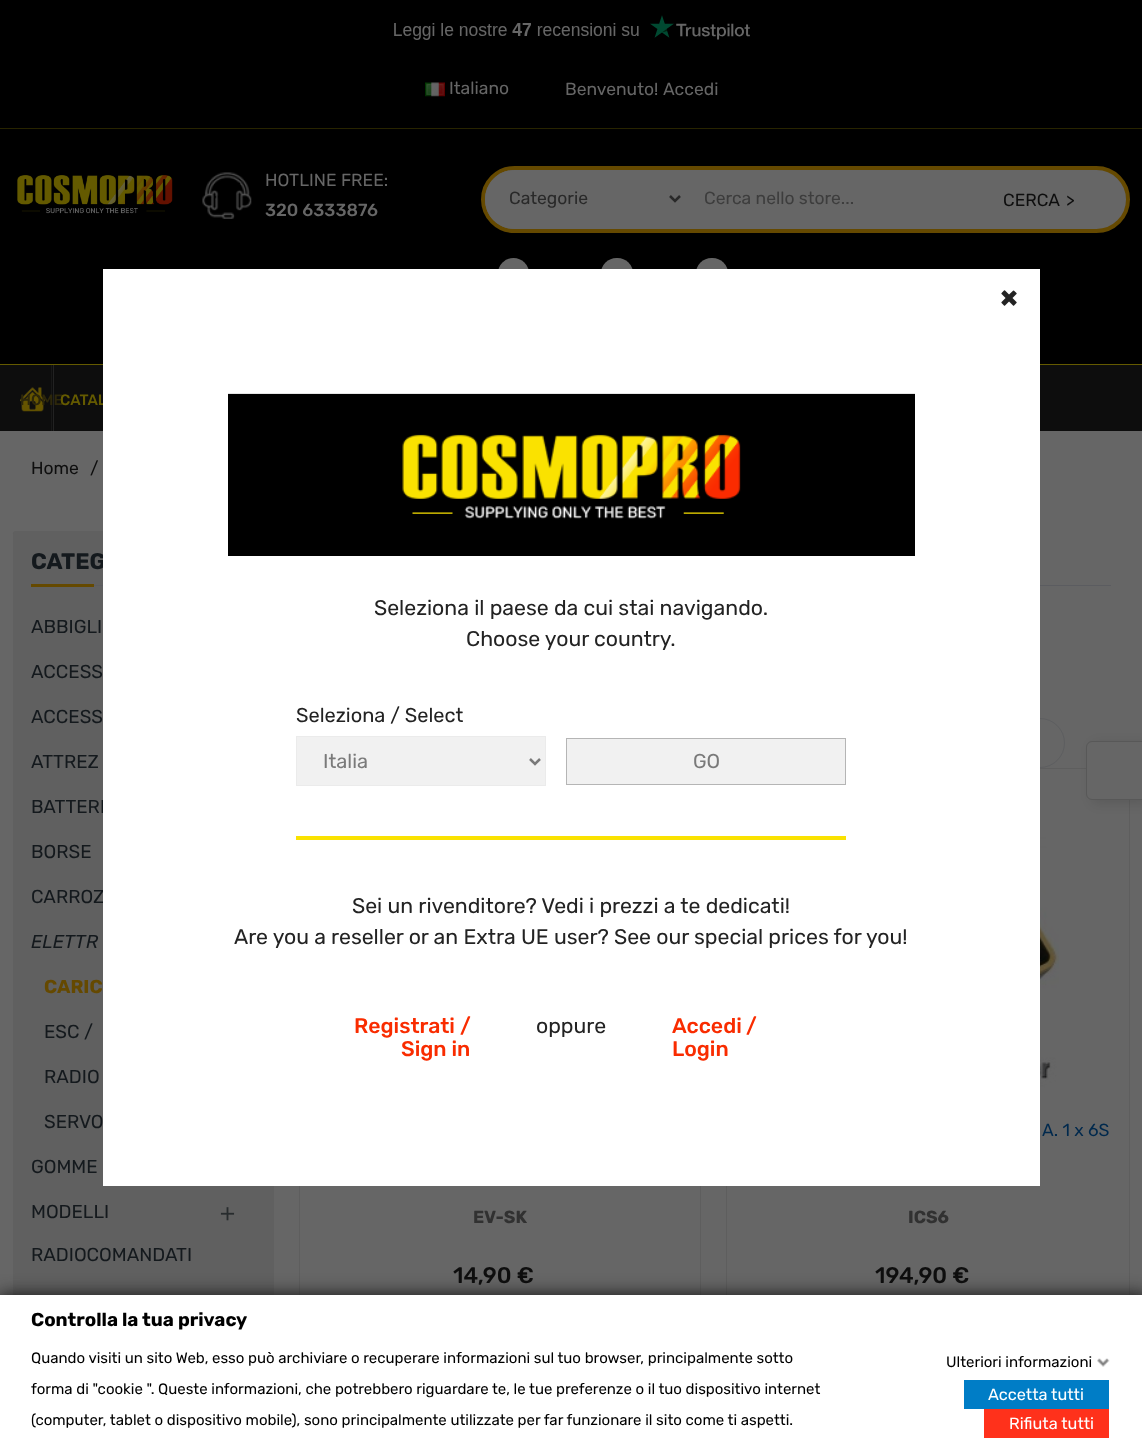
<svg xmlns="http://www.w3.org/2000/svg" width="1142" height="1455">
	<rect width="100%" height="100%" fill="#666666" />
	<rect x="0" y="0" width="1142" height="364" fill="#000000" />
	<rect x="0" y="128" width="1142" height="1" fill="#282400" />
	<image x="394" y="15" width="356" height="25" href="assets/img1.png" />
	<image x="425" y="82" width="20" height="15" href="assets/img2.png" />
	<g font-family="Rubik" font-size="17.5" fill="#666666">
		<text x="449" y="94">Italiano</text>
		<text x="565" y="95">Benvenuto!</text>
		<text x="663" y="95">Accedi</text>
	</g>
	<image x="17" y="175" width="156" height="39" href="assets/img3.png" />
	<image x="202" y="172" width="50" height="47" href="assets/img4.png" />
	<text x="265" y="186" font-family="Rubik" font-size="17.5" fill="#666666">HOTLINE FREE:</text>
	<text x="265" y="216" font-family="Rubik" font-size="17.5" font-weight="500" fill="#666666">320 6333876</text>
	<rect x="483" y="168" width="645" height="63" rx="31.5" fill="#666666" stroke="#654900" stroke-width="4" />
	<path d="M514.5 170H685V229H514.5C498 229 485 216 485 199.5C485 183 498 170 514.5 170Z" fill="#666666" />
	<path d="M670 196L675 201L680 196" fill="none" stroke="#292929" stroke-width="2.5" />
	<text x="509" y="204" font-family="Rubik" font-size="17.5" fill="#292929">Categorie</text>
	<text x="704" y="204" font-family="Rubik" font-size="17.5" fill="#3D3D3D">Cerca nello store...</text>
	<g font-family="Rubik" font-size="17.5" fill="#0E0E0E">
		<text x="1003" y="206">CERCA</text>
		<text x="1066" y="206">&gt;</text>
	</g>
	<circle cx="513.5" cy="273.5" r="15.5" fill="#666666" />
	<rect x="601" y="258" width="32" height="31" rx="15.5" fill="#666666" />
	<rect x="696" y="258" width="32" height="31" rx="15.5" fill="#666666" />
	<rect x="0" y="365" width="1142" height="66" fill="#0D0D0D" />
	<rect x="0" y="364" width="1142" height="1" fill="#645A00" />
	<rect x="51" y="365" width="1" height="66" fill="#171717" />
	<image x="20" y="387" width="25" height="25" href="assets/img5.png" />
	<rect x="53" y="365" width="1" height="66" fill="#222222" />
	<text x="20" y="405" font-family="Rubik" font-size="15" font-weight="500" fill="#2D270A">HOME</text>
	<text x="60" y="405" font-family="Rubik" font-size="15" font-weight="500" fill="#645A00">CATAL</text>
	<g font-family="Rubik" font-size="17.5" fill="#0E0E0E">
		<text x="31" y="474">Home</text>
		<text x="90" y="474">/</text>
	</g>
	<rect x="13" y="531" width="261" height="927" rx="2.5" fill="#606060" />
	<rect x="94" y="585" width="9" height="1" fill="#5B5C60" />
	<text x="31" y="569" font-family="Rubik" font-size="22.5" font-weight="700" fill="#14191D">CATEG</text>
	<rect x="31" y="584" width="63" height="3" fill="#654900" />
	<g font-family="Rubik" font-size="18.75" fill="#14191D">
		<text x="31" y="633">ABBIGLI</text>
		<text x="31" y="678">ACCESS</text>
		<text x="31" y="723">ACCESS</text>
		<text x="31" y="768">ATTREZ</text>
		<text x="31" y="813">BATTERI</text>
		<text x="31" y="858">BORSE</text>
		<text x="31" y="903">CARROZ</text>
	</g>
	<text x="31" y="948" font-family="Rubik" font-size="18.75" font-style="italic" fill="#14191D">ELETTR</text>
	<text x="44" y="993" font-family="Rubik" font-size="18.75" font-weight="700" fill="#654900">CARIC</text>
	<g font-family="Rubik" font-size="18.75" fill="#14191D">
		<text x="44" y="1038">ESC /</text>
		<text x="44" y="1083">RADIO</text>
		<text x="44" y="1128">SERVO</text>
		<text x="31" y="1173">GOMME</text>
		<text x="31" y="1218">MODELLI</text>
		<text x="31" y="1261">RADIOCOMANDATI</text>
	</g>
	<image x="220" y="1207" width="15" height="14" href="assets/img6.png" />
	<rect x="1040" y="585" width="71" height="1" fill="#5B5C60" />
	<rect x="726.5" y="718.5" width="338" height="49" rx="24.5" fill="none" stroke="#5D5E60" />
	<rect x="299.5" y="768.5" width="401" height="546" fill="none" stroke="#5E5E5E" />
	<text x="473" y="1223" font-family="Rubik" font-size="17.5" font-weight="700" fill="#313131">EV-SK</text>
	<text x="453" y="1283" font-family="Rubik" font-size="22.5" font-weight="500" fill="#0E0E0E">14,90 €</text>
	<rect x="726.5" y="768.5" width="403" height="546" fill="none" stroke="#5E5E5E" />
	<image x="1040" y="788" width="19" height="300" href="assets/img7.png" />
	<text x="1042" y="1136" font-family="Rubik" font-size="17.5" fill="#00294D">A. 1 x 6S</text>
	<text x="908" y="1223" font-family="Rubik" font-size="17.5" font-weight="700" fill="#313131">ICS6</text>
	<text x="875" y="1283" font-family="Rubik" font-size="22.5" font-weight="500" fill="#0E0E0E">194,90 €</text>
	<rect x="103" y="269" width="937" height="917" fill="#FFFFFF" />
	<rect x="228" y="393" width="687" height="1" fill="#E5E5E5" />
	<text x="1000" y="307" font-family="Rubik" font-size="30" font-weight="700" fill="#232323">×</text>
	<rect x="228" y="394" width="687" height="162" fill="#000000" />
	<image x="402" y="434" width="339" height="85" href="assets/img8.png" />
	<g font-family="Rubik" font-size="21.25" fill="#232323">
		<text x="374" y="615">Seleziona il paese da cui stai navigando.</text>
		<text x="466" y="646">Choose your country.</text>
	</g>
	<text x="296" y="722" font-family="Rubik" font-size="20" fill="#232323">Seleziona / Select</text>
	<rect x="296.5" y="736.5" width="249" height="49" fill="#F1F1F1" stroke="#EBEBEB" />
	<path d="M530 759L535 764L540 759" fill="none" stroke="#7A7A7A" stroke-width="2.5" />
	<text x="323" y="768" font-family="Rubik" font-size="20" fill="#7A7A7A">Italia</text>
	<rect x="566.5" y="738.5" width="279" height="46" fill="#F1F1F1" stroke="#B5B5B5" />
	<text x="693" y="768" font-family="Rubik" font-size="20" fill="#7A7A7A">GO</text>
	<rect x="296" y="836" width="550" height="4" fill="#FAE200" />
	<g font-family="Rubik" font-size="21.25" fill="#232323">
		<text x="352" y="913">Sei un rivenditore? Vedi i prezzi a te dedicati!</text>
		<text x="234" y="944">Are you a reseller or an Extra UE user? See our special prices for you!</text>
	</g>
	<g font-family="Rubik" font-size="21.25" font-weight="500" fill="#F92C00">
		<text x="354" y="1033">Registrati</text>
		<text x="460" y="1033">/</text>
		<text x="401" y="1056">Sign in</text>
	</g>
	<text x="536" y="1033" font-family="Rubik" font-size="21.25" fill="#232323">oppure</text>
	<g font-family="Rubik" font-size="21.25" font-weight="500" fill="#F92C00">
		<text x="672" y="1033">Accedi</text>
		<text x="746" y="1033">/</text>
		<text x="672" y="1056">Login</text>
	</g>
	<rect x="1091" y="743" width="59" height="61" rx="8" fill="#000000" fill-opacity="0.1" filter="blur(5.5px)" />
	<path d="M1092 741.5H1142.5V799.5H1092C1089 799.5 1086.5 797 1086.5 794V747C1086.5 744 1089 741.5 1092 741.5Z" fill="#666666" stroke="#585858" />
	<rect x="0" y="1295" width="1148" height="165" fill="#121212" filter="blur(9px)" />
	<rect x="0" y="1295" width="1142" height="160" fill="#FFFFFF" />
	<text x="31" y="1326" font-family="Rubik" font-size="18.75" font-weight="700" fill="#000000">Controlla la tua privacy</text>
	<g font-family="Rubik" font-size="15" fill="#000000">
		<text x="31" y="1363">Quando visiti un sito Web, esso può archiviare o recuperare informazioni sul tuo browser, principalmente sotto</text>
		<text x="31" y="1394">forma di "cookie ". Queste informazioni, che potrebbero riguardare te, le tue preferenze o il tuo dispositivo internet</text>
		<text x="31" y="1425">(computer, tablet o dispositivo mobile), sono principalmente utilizzate per far funzionare il sito come ti aspetti.</text>
		<text x="946" y="1367">Ulteriori informazioni</text>
	</g>
	<image x="1097" y="1358" width="13" height="9" href="assets/img9.png" />
	<rect x="964" y="1380" width="145" height="29" fill="#007DC6" />
	<text x="988" y="1400" font-family="Rubik" font-size="16.25" fill="#FFFFFF">Accetta tutti</text>
	<rect x="984" y="1409" width="125" height="29" fill="#FF311B" />
	<text x="1009" y="1429" font-family="Rubik" font-size="16.25" fill="#FFFFFF">Rifiuta tutti</text>
</svg>
